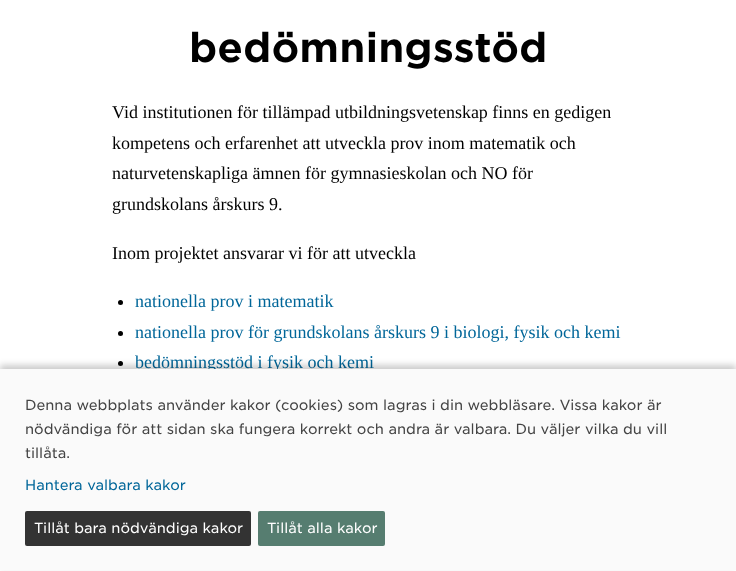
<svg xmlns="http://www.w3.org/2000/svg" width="736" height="571">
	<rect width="100%" height="100%" fill="#FFFFFF" />
	<text x="189" y="62" font-family="'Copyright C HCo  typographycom'" font-size="40" fill="#000000">bedömningsstöd</text>
	<g font-family="Liberation Serif" font-size="18" fill="#000000">
		<text x="112" y="118">Vid institutionen för tillämpad utbildningsvetenskap finns en gedigen</text>
		<text x="112" y="149">kompetens och erfarenhet att utveckla prov inom matematik och</text>
		<text x="112" y="179">naturvetenskapliga ämnen för gymnasieskolan och NO för</text>
		<text x="112" y="210">grundskolans årskurs 9.</text>
		<text x="112" y="259">Inom projektet ansvarar vi för att utveckla</text>
	</g>
	<circle cx="120.5" cy="302.5" r="2.5" fill="#000000" />
	<text x="135" y="307" font-family="Liberation Serif" font-size="18" fill="#006699">nationella prov i matematik</text>
	<circle cx="120.5" cy="333.5" r="2.5" fill="#000000" />
	<text x="135" y="338" font-family="Liberation Serif" font-size="18" fill="#006699">nationella prov för grundskolans årskurs 9 i biologi, fysik och kemi</text>
	<circle cx="120.5" cy="363.5" r="2.5" fill="#000000" />
	<text x="135" y="368" font-family="Liberation Serif" font-size="18" fill="#006699">bedömningsstöd i fysik och kemi</text>
	<rect x="0" y="365" width="736" height="202" fill="#000000" fill-opacity="0.2" filter="blur(3px)" />
	<rect x="0" y="369" width="736" height="201" fill="#FAFAFA" />
	<g font-family="'Copyright C HCo  typographycom'" font-size="14" font-weight="300" fill="#444444">
		<text x="25" y="410">Denna webbplats använder kakor (cookies) som lagras i din webbläsare. Vissa kakor är</text>
		<text x="25" y="434">nödvändiga för att sidan ska fungera korrekt och andra är valbara. Du väljer vilka du vill</text>
		<text x="25" y="458">tillåta.</text>
	</g>
	<text x="25" y="490" font-family="'Copyright C HCo  typographycom'" font-size="14" font-weight="300" fill="#006699">Hantera valbara kakor</text>
	<rect x="25" y="511" width="226" height="35" rx="2" fill="#333333" />
	<text x="34" y="533" font-family="'Copyright C HCo  typographycom'" font-size="14" font-weight="300" fill="#FFFFFF">Tillåt bara nödvändiga kakor</text>
	<rect x="258" y="511" width="127" height="35" rx="2" fill="#567D70" />
	<text x="267" y="533" font-family="'Copyright C HCo  typographycom'" font-size="14" font-weight="300" fill="#FFFFFF">Tillåt alla kakor</text>
</svg>
